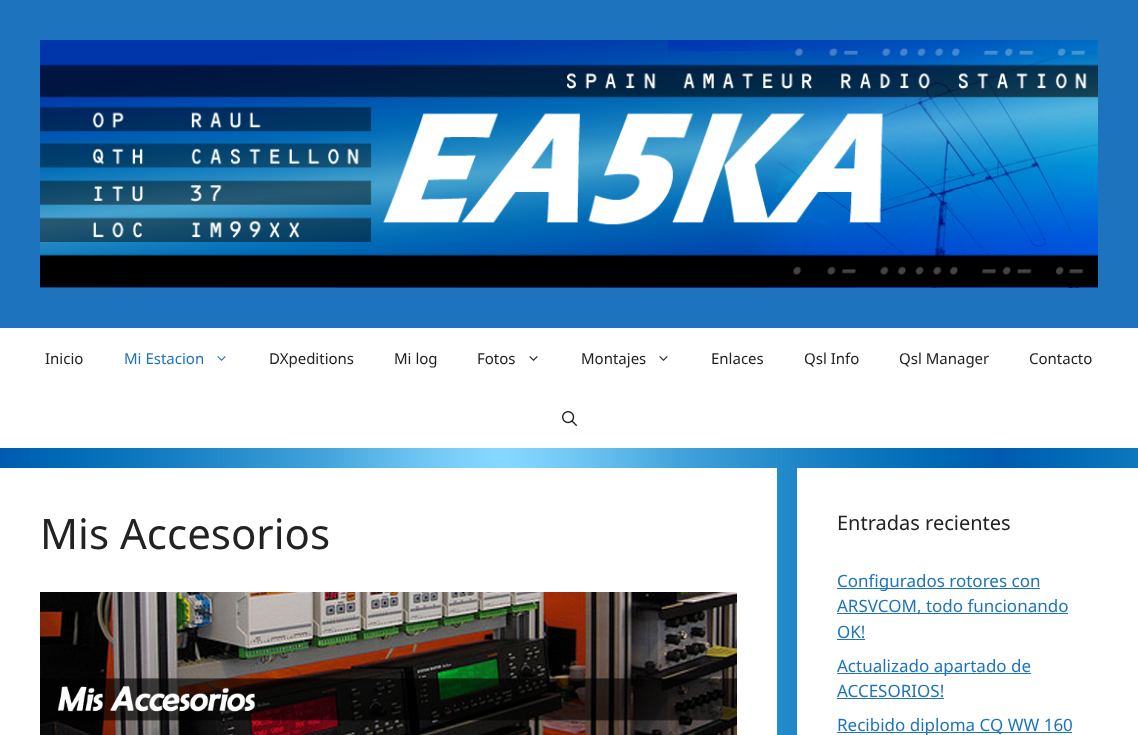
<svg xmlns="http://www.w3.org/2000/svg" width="1138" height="735">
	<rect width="100%" height="100%" fill="#FFFFFF" />
	<image x="0" y="448" width="1138" height="287" href="assets/img1.png" />
	<rect x="0" y="0" width="1138" height="328" fill="#1E73BE" />
	<image x="40" y="40" width="1058" height="248" href="assets/img2.png" />
	<text x="45" y="364" font-family="Noto Sans" font-size="15" fill="#222222">Inicio</text>
	<text x="124" y="364" font-family="Noto Sans" font-size="15" fill="#1E73BE">Mi Estacion</text>
	<image x="217" y="356" width="9" height="5" href="assets/img3.png" />
	<g font-family="Noto Sans" font-size="15" fill="#222222">
		<text x="269" y="364">DXpeditions</text>
		<text x="394" y="364">Mi log</text>
		<text x="477" y="364">Fotos</text>
	</g>
	<image x="529" y="356" width="9" height="5" href="assets/img4.png" />
	<text x="581" y="364" font-family="Noto Sans" font-size="15" fill="#222222">Montajes</text>
	<image x="659" y="356" width="9" height="5" href="assets/img4.png" />
	<g font-family="Noto Sans" font-size="15" fill="#222222">
		<text x="711" y="364">Enlaces</text>
		<text x="804" y="364">Qsl Info</text>
		<text x="899" y="364">Qsl Manager</text>
		<text x="1029" y="364">Contacto</text>
	</g>
	<image x="562" y="411" width="15" height="15" href="assets/img5.png" />
	<rect x="0" y="468" width="777" height="267" fill="#FFFFFF" />
	<text x="40" y="549" font-family="Noto Sans" font-size="42" fill="#222222">Mis Accesorios</text>
	<image x="40" y="592" width="697" height="143" href="assets/img6.png" />
	<rect x="797" y="468" width="341" height="267" fill="#FFFFFF" />
	<text x="837" y="530" font-family="Noto Sans" font-size="20" fill="#222222">Entradas recientes</text>
	<rect x="837" y="588" width="203" height="1" fill="#1E73BE" />
	<text x="837" y="587" font-family="Noto Sans" font-size="17" fill="#1E73BE">Configurados rotores con</text>
	<rect x="837" y="613" width="231" height="1" fill="#1E73BE" />
	<g font-family="Noto Sans" font-size="17" fill="#1E73BE">
		<text x="837" y="612">ARSVCOM, todo funcionando</text>
		<text x="837" y="638">OK!</text>
	</g>
	<rect x="837" y="639" width="28" height="1" fill="#1E73BE" />
	<rect x="837" y="673" width="194" height="1" fill="#1E73BE" />
	<g font-family="Noto Sans" font-size="17" fill="#1E73BE">
		<text x="837" y="672">Actualizado apartado de</text>
		<text x="837" y="697">ACCESORIOS!</text>
	</g>
	<rect x="837" y="698" width="107" height="1" fill="#1E73BE" />
	<rect x="837" y="732" width="235" height="1" fill="#1E73BE" />
	<text x="837" y="731" font-family="Noto Sans" font-size="17" fill="#1E73BE">Recibido diploma CQ WW 160</text>
</svg>
